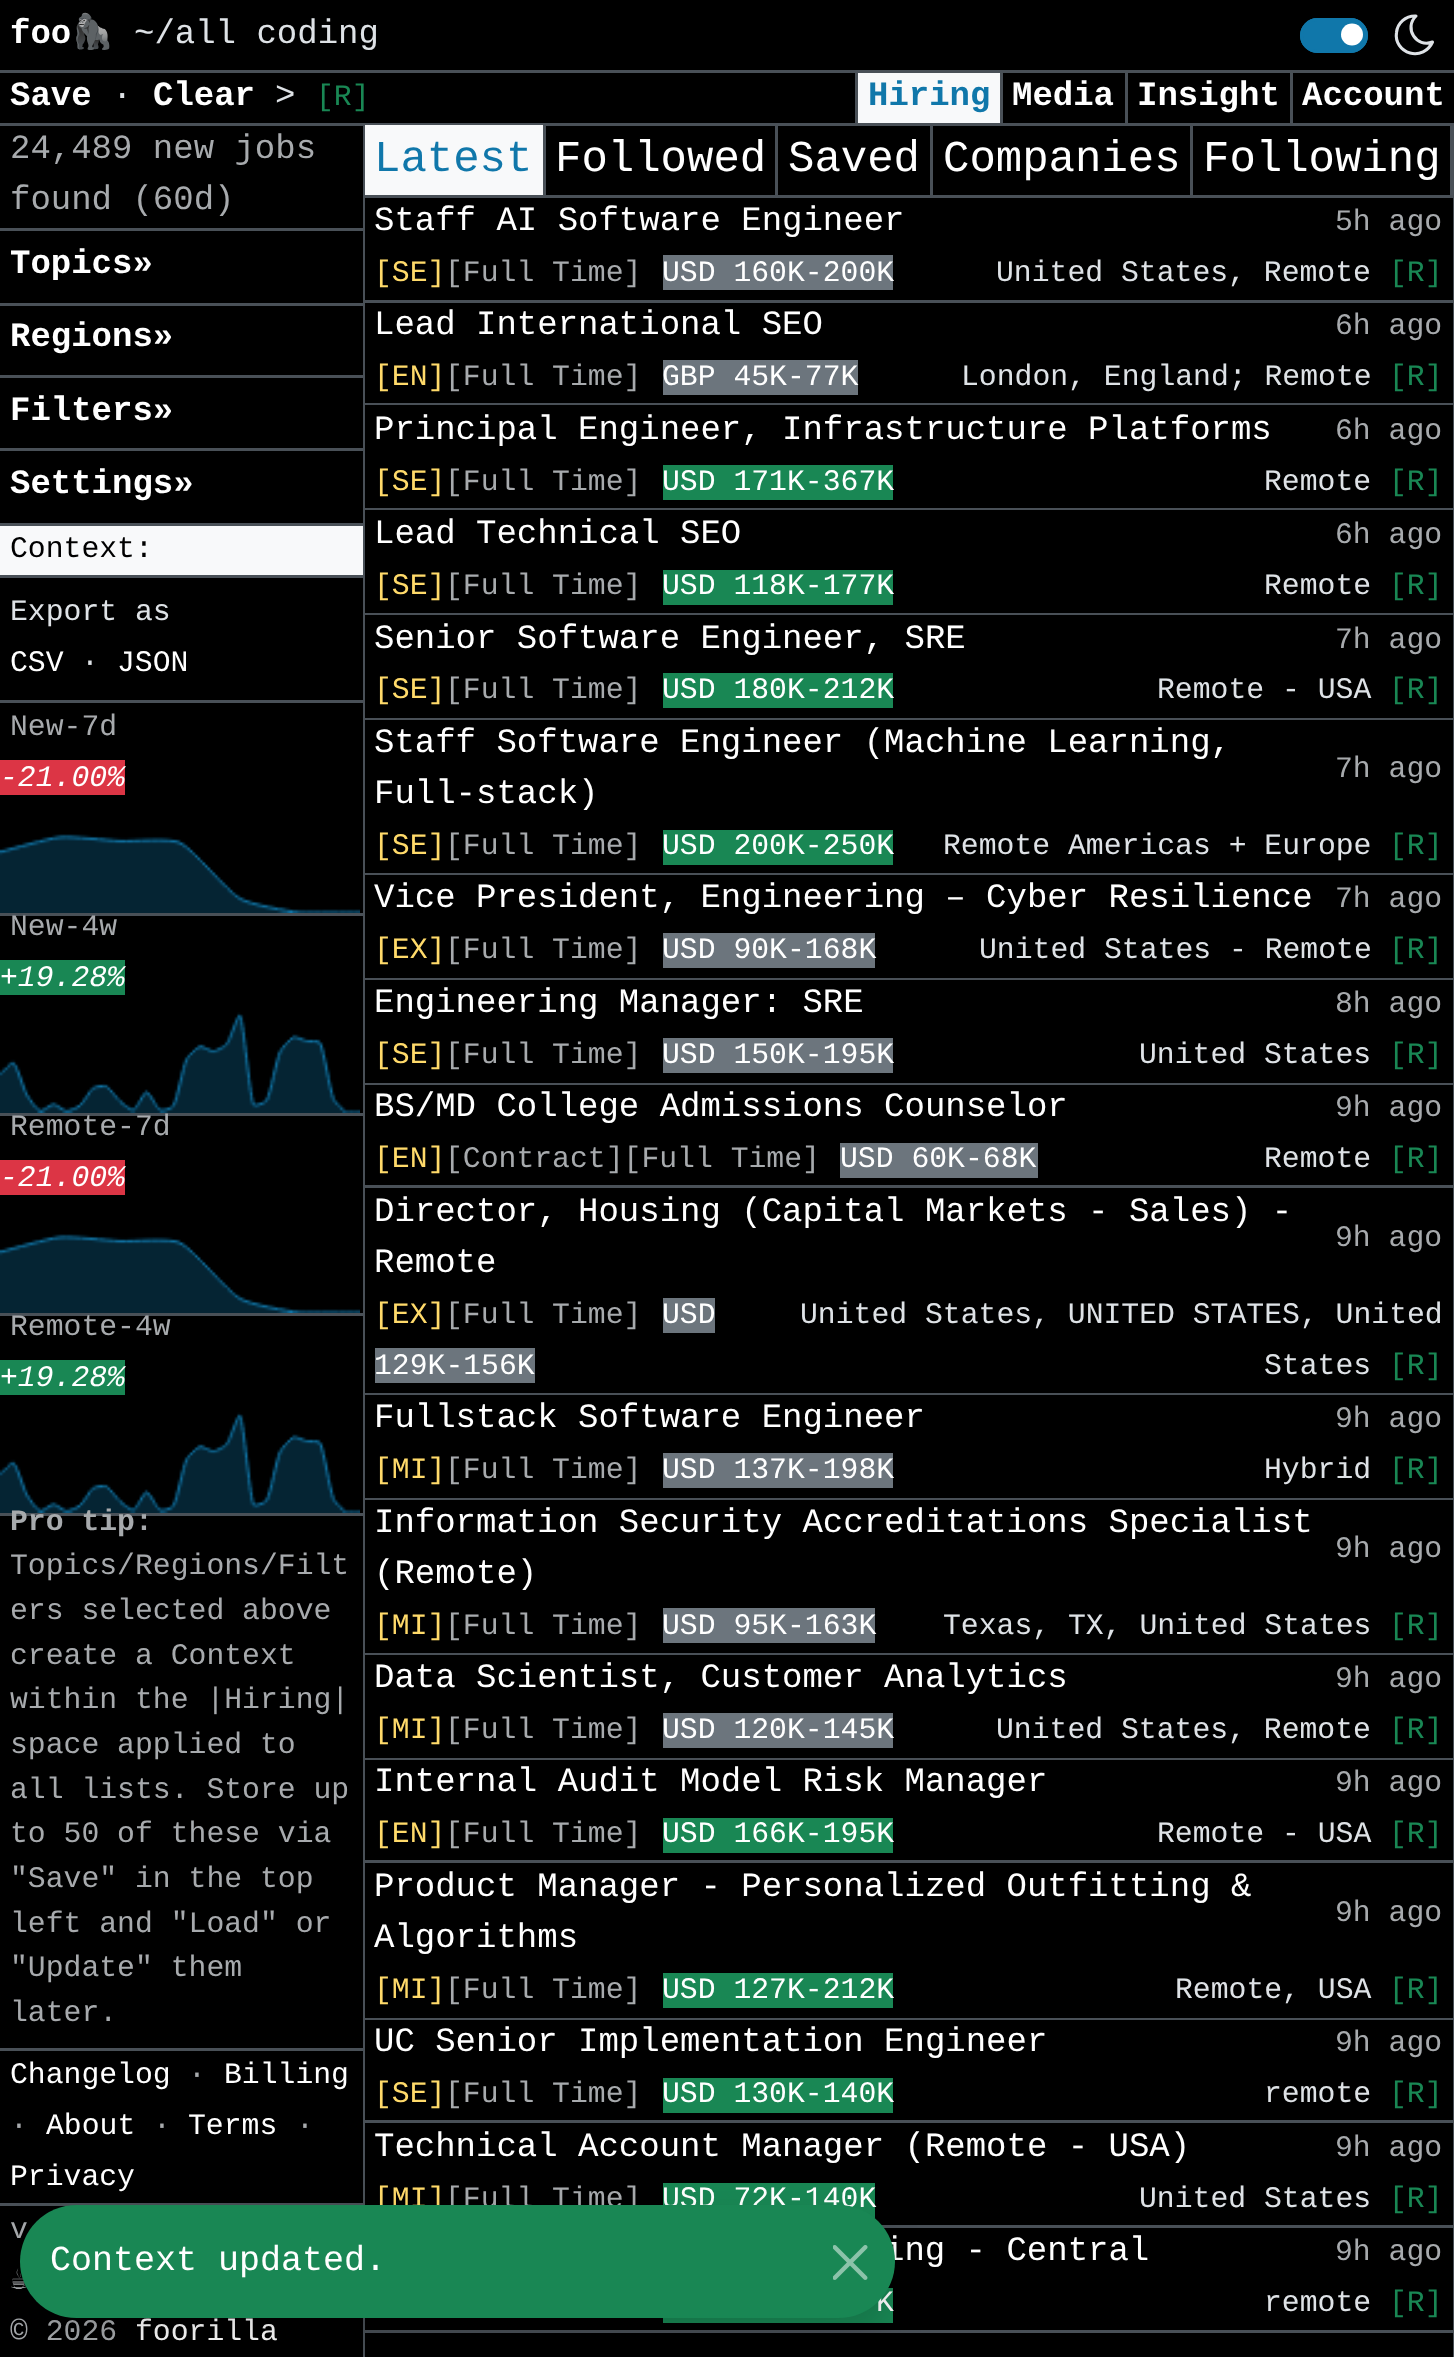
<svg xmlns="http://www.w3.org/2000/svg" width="1454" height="2357">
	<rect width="100%" height="100%" fill="#000000" />
	<rect x="0" y="70" width="1454" height="3" fill="#495057" />
	<text x="10" y="43" font-family="Liberation Mono" font-size="34" font-weight="700" fill="#FFFFFF">foo</text>
	<text x="71" y="43" font-family="Noto Color Emoji" font-size="34" font-weight="700" fill="#FFFFFF">🦍</text>
	<text x="134" y="43" font-family="Liberation Mono" font-size="34" fill="#DEE2E6">~/all coding</text>
	<rect x="1300" y="18" width="68" height="35" rx="17.5" fill="#1077AA" />
	<circle cx="1352" cy="34.5" r="11" fill="#FFFFFF" />
	<rect x="1301.5" y="19.5" width="65" height="32" rx="16" fill="none" stroke="#1077AA" stroke-width="3" />
	<path d="M1415 16H1416C1403.5 28 1416.5 48.5 1432.5 42C1428.5 51 1419 55.5 1410 53C1401 50.5 1395 42 1396.5 32.5C1397.5 23 1405.5 16 1415 16Z" fill="none" stroke="#DEE2E6" stroke-width="3.1" stroke-linecap="round" stroke-linejoin="round" />
	<rect x="0" y="123" width="1454" height="3" fill="#495057" />
	<text x="10" y="105" font-family="Liberation Mono" font-size="34" font-weight="700" fill="#FFFFFF">Save</text>
	<text x="112" y="105" font-family="Liberation Mono" font-size="34" fill="#DEE2E6">·</text>
	<text x="153" y="105" font-family="Liberation Mono" font-size="34" font-weight="700" fill="#FFFFFF">Clear</text>
	<text x="275" y="105" font-family="Liberation Mono" font-size="34" fill="#DEE2E6">&gt;</text>
	<text x="316" y="105" font-family="Liberation Mono" font-size="29.75" fill="#198754">[R]</text>
	<rect x="858" y="73" width="142" height="50" fill="#F8F9FA" />
	<rect x="855" y="73" width="3" height="50" fill="#495057" />
	<text x="868" y="105" font-family="Liberation Mono" font-size="34" font-weight="700" fill="#1077AA">Hiring</text>
	<rect x="1000" y="73" width="3" height="50" fill="#495057" />
	<text x="1012" y="105" font-family="Liberation Mono" font-size="34" font-weight="700" fill="#FFFFFF">Media</text>
	<rect x="1125" y="73" width="3" height="50" fill="#495057" />
	<text x="1137" y="105" font-family="Liberation Mono" font-size="34" font-weight="700" fill="#FFFFFF">Insight</text>
	<rect x="1290" y="73" width="3" height="50" fill="#495057" />
	<text x="1302" y="105" font-family="Liberation Mono" font-size="34" font-weight="700" fill="#FFFFFF">Account</text>
	<rect x="363" y="125" width="2" height="2232" fill="#495057" />
	<rect x="0" y="228" width="363" height="3" fill="#495057" />
	<g font-family="Liberation Mono" font-size="34" fill="#A7AAAD">
		<text x="10" y="158">24,489 new jobs</text>
		<text x="10" y="209">found (60d)</text>
	</g>
	<rect x="0" y="303" width="363" height="3" fill="#495057" />
	<text x="10" y="273" font-family="Liberation Mono" font-size="34" font-weight="700" fill="#FFFFFF">Topics»</text>
	<rect x="0" y="375" width="363" height="3" fill="#495057" />
	<text x="10" y="346" font-family="Liberation Mono" font-size="34" font-weight="700" fill="#FFFFFF">Regions»</text>
	<rect x="0" y="448" width="363" height="3" fill="#495057" />
	<text x="10" y="420" font-family="Liberation Mono" font-size="34" font-weight="700" fill="#FFFFFF">Filters»</text>
	<rect x="0" y="523" width="363" height="3" fill="#495057" />
	<text x="10" y="493" font-family="Liberation Mono" font-size="34" font-weight="700" fill="#FFFFFF">Settings»</text>
	<rect x="0" y="526" width="363" height="49" fill="#F8F9FA" />
	<rect x="0" y="575" width="363" height="3" fill="#495057" />
	<text x="10" y="557" font-family="Liberation Mono" font-size="29.75" fill="#000000">Context:</text>
	<rect x="0" y="700" width="363" height="3" fill="#495057" />
	<text x="10" y="620" font-family="Liberation Mono" font-size="29.75" fill="#DEE2E6">Export as</text>
	<text x="10" y="671" font-family="Liberation Mono" font-size="29.75" fill="#FFFFFF">CSV</text>
	<text x="81" y="671" font-family="Liberation Mono" font-size="29.75" fill="#DEE2E6">·</text>
	<text x="117" y="671" font-family="Liberation Mono" font-size="29.75" fill="#FFFFFF">JSON</text>
	<text x="10" y="735" font-family="Liberation Mono" font-size="29.75" fill="#A7AAAD">New-7d</text>
	<rect x="0" y="760" width="125" height="35" fill="#DC3545" />
	<text x="0" y="786" font-family="Liberation Mono" font-size="29.75" font-style="italic" fill="#FFFFFF">-21.00%</text>
	<rect x="0" y="913" width="363" height="3" fill="#495057" />
	<image x="0" y="834" width="360" height="79" href="assets/img1.png" />
	<text x="10" y="935" font-family="Liberation Mono" font-size="29.75" fill="#A7AAAD">New-4w</text>
	<rect x="0" y="960" width="125" height="35" fill="#198754" />
	<text x="0" y="986" font-family="Liberation Mono" font-size="29.75" font-style="italic" fill="#FFFFFF">+19.28%</text>
	<rect x="0" y="1113" width="363" height="3" fill="#495057" />
	<image x="0" y="1012" width="360" height="101" href="assets/img2.png" />
	<text x="10" y="1135" font-family="Liberation Mono" font-size="29.75" fill="#A7AAAD">Remote-7d</text>
	<rect x="0" y="1160" width="125" height="35" fill="#DC3545" />
	<text x="0" y="1186" font-family="Liberation Mono" font-size="29.75" font-style="italic" fill="#FFFFFF">-21.00%</text>
	<rect x="0" y="1313" width="363" height="3" fill="#495057" />
	<image x="0" y="1234" width="360" height="79" href="assets/img3.png" />
	<text x="10" y="1335" font-family="Liberation Mono" font-size="29.75" fill="#A7AAAD">Remote-4w</text>
	<rect x="0" y="1360" width="125" height="35" fill="#198754" />
	<text x="0" y="1386" font-family="Liberation Mono" font-size="29.75" font-style="italic" fill="#FFFFFF">+19.28%</text>
	<rect x="0" y="1513" width="363" height="3" fill="#495057" />
	<image x="0" y="1412" width="360" height="101" href="assets/img4.png" />
	<text x="10" y="1530" font-family="Liberation Mono" font-size="29.75" font-weight="700" fill="#A7AAAD">Pro tip:</text>
	<g font-family="Liberation Mono" font-size="29.75" fill="#A7AAAD">
		<text x="10" y="1574">Topics/Regions/Filt</text>
		<text x="10" y="1619">ers selected above</text>
		<text x="10" y="1664">create a Context</text>
		<text x="10" y="1708">within the |Hiring|</text>
		<text x="10" y="1753">space applied to</text>
		<text x="10" y="1798">all lists. Store up</text>
		<text x="10" y="1842">to 50 of these via</text>
		<text x="10" y="1887">"Save" in the top</text>
		<text x="10" y="1932">left and "Load" or</text>
		<text x="10" y="1976">"Update" them</text>
		<text x="10" y="2021">later.</text>
	</g>
	<rect x="0" y="2048" width="363" height="3" fill="#495057" />
	<text x="10" y="2083" font-family="Liberation Mono" font-size="29.75" fill="#FFFFFF">Changelog</text>
	<text x="188" y="2083" font-family="Liberation Mono" font-size="29.75" fill="#A7AAAD">·</text>
	<text x="224" y="2083" font-family="Liberation Mono" font-size="29.75" fill="#FFFFFF">Billing</text>
	<text x="10" y="2134" font-family="Liberation Mono" font-size="29.75" fill="#A7AAAD">·</text>
	<text x="46" y="2134" font-family="Liberation Mono" font-size="29.75" fill="#FFFFFF">About</text>
	<text x="153" y="2134" font-family="Liberation Mono" font-size="29.75" fill="#A7AAAD">·</text>
	<text x="188" y="2134" font-family="Liberation Mono" font-size="29.75" fill="#FFFFFF">Terms</text>
	<text x="296" y="2134" font-family="Liberation Mono" font-size="29.75" fill="#A7AAAD">·</text>
	<text x="10" y="2185" font-family="Liberation Mono" font-size="29.75" fill="#FFFFFF">Privacy</text>
	<rect x="0" y="2203" width="363" height="3" fill="#495057" />
	<text x="10" y="2238" font-family="Liberation Mono" font-size="29.75" fill="#A7AAAD">v</text>
	<text x="10" y="2289" font-family="DejaVu Sans Mono" font-size="29.75" fill="#A7AAAD">☕</text>
	<text x="10" y="2340" font-family="Liberation Mono" font-size="29.75" fill="#A7AAAD">© 2026</text>
	<text x="135" y="2340" font-family="Liberation Mono" font-size="29.75" fill="#FFFFFF">foorilla</text>
	<rect x="1453" y="125" width="1" height="2232" fill="#495057" />
	<rect x="365" y="195" width="1088" height="3" fill="#495057" />
	<rect x="365" y="125" width="178" height="70" fill="#F8F9FA" />
	<rect x="543" y="125" width="3" height="70" fill="#495057" />
	<text x="374" y="171" font-family="Liberation Mono" font-size="44" fill="#1077AA">Latest</text>
	<rect x="775" y="125" width="3" height="70" fill="#495057" />
	<text x="555" y="171" font-family="Liberation Mono" font-size="44" fill="#FFFFFF">Followed</text>
	<rect x="930" y="125" width="3" height="70" fill="#495057" />
	<text x="788" y="171" font-family="Liberation Mono" font-size="44" fill="#FFFFFF">Saved</text>
	<rect x="1190" y="125" width="3" height="70" fill="#495057" />
	<text x="943" y="171" font-family="Liberation Mono" font-size="44" fill="#FFFFFF">Companies</text>
	<rect x="1450" y="125" width="3" height="70" fill="#495057" />
	<text x="1203" y="171" font-family="Liberation Mono" font-size="44" fill="#FFFFFF">Following</text>
	<rect x="365" y="300" width="1088" height="3" fill="#495057" />
	<text x="374" y="230" font-family="Liberation Mono" font-size="34" fill="#FFFFFF">Staff AI Software Engineer</text>
	<text x="1335" y="230" font-family="Liberation Mono" font-size="29.75" fill="#A7AAAD">5h ago</text>
	<text x="374" y="281" font-family="Liberation Mono" font-size="29.75" fill="#FFDA6A">[SE]</text>
	<text x="445" y="281" font-family="Liberation Mono" font-size="29.75" fill="#A7AAAD">[Full Time]</text>
	<rect x="663" y="255" width="230" height="35" fill="#6C757D" />
	<text x="662" y="281" font-family="Liberation Mono" font-size="29.75" fill="#FFFFFF">USD 160K-200K</text>
	<text x="996" y="281" font-family="Liberation Mono" font-size="29.75" fill="#DEE2E6">United States, Remote</text>
	<text x="1389" y="281" font-family="Liberation Mono" font-size="29.75" fill="#198754">[R]</text>
	<rect x="365" y="403" width="1088" height="2" fill="#495057" />
	<text x="374" y="334" font-family="Liberation Mono" font-size="34" fill="#FFFFFF">Lead International SEO</text>
	<text x="1335" y="334" font-family="Liberation Mono" font-size="29.75" fill="#A7AAAD">6h ago</text>
	<text x="374" y="385" font-family="Liberation Mono" font-size="29.75" fill="#FFDA6A">[EN]</text>
	<text x="445" y="385" font-family="Liberation Mono" font-size="29.75" fill="#A7AAAD">[Full Time]</text>
	<rect x="663" y="360" width="195" height="35" fill="#6C757D" />
	<text x="662" y="385" font-family="Liberation Mono" font-size="29.75" fill="#FFFFFF">GBP 45K-77K</text>
	<text x="961" y="385" font-family="Liberation Mono" font-size="29.75" fill="#DEE2E6">London, England; Remote</text>
	<text x="1389" y="385" font-family="Liberation Mono" font-size="29.75" fill="#198754">[R]</text>
	<rect x="365" y="508" width="1088" height="2" fill="#495057" />
	<text x="374" y="439" font-family="Liberation Mono" font-size="34" fill="#FFFFFF">Principal Engineer, Infrastructure Platforms</text>
	<text x="1335" y="439" font-family="Liberation Mono" font-size="29.75" fill="#A7AAAD">6h ago</text>
	<text x="374" y="490" font-family="Liberation Mono" font-size="29.75" fill="#FFDA6A">[SE]</text>
	<text x="445" y="490" font-family="Liberation Mono" font-size="29.75" fill="#A7AAAD">[Full Time]</text>
	<rect x="663" y="465" width="230" height="35" fill="#198754" />
	<text x="662" y="490" font-family="Liberation Mono" font-size="29.75" fill="#FFFFFF">USD 171K-367K</text>
	<text x="1264" y="490" font-family="Liberation Mono" font-size="29.75" fill="#DEE2E6">Remote</text>
	<text x="1389" y="490" font-family="Liberation Mono" font-size="29.75" fill="#198754">[R]</text>
	<rect x="365" y="613" width="1088" height="2" fill="#495057" />
	<text x="374" y="543" font-family="Liberation Mono" font-size="34" fill="#FFFFFF">Lead Technical SEO</text>
	<text x="1335" y="543" font-family="Liberation Mono" font-size="29.75" fill="#A7AAAD">6h ago</text>
	<text x="374" y="594" font-family="Liberation Mono" font-size="29.75" fill="#FFDA6A">[SE]</text>
	<text x="445" y="594" font-family="Liberation Mono" font-size="29.75" fill="#A7AAAD">[Full Time]</text>
	<rect x="663" y="570" width="230" height="35" fill="#198754" />
	<text x="662" y="594" font-family="Liberation Mono" font-size="29.75" fill="#FFFFFF">USD 118K-177K</text>
	<text x="1264" y="594" font-family="Liberation Mono" font-size="29.75" fill="#DEE2E6">Remote</text>
	<text x="1389" y="594" font-family="Liberation Mono" font-size="29.75" fill="#198754">[R]</text>
	<rect x="365" y="718" width="1088" height="2" fill="#495057" />
	<text x="374" y="648" font-family="Liberation Mono" font-size="34" fill="#FFFFFF">Senior Software Engineer, SRE</text>
	<text x="1335" y="648" font-family="Liberation Mono" font-size="29.75" fill="#A7AAAD">7h ago</text>
	<text x="374" y="698" font-family="Liberation Mono" font-size="29.75" fill="#FFDA6A">[SE]</text>
	<text x="445" y="698" font-family="Liberation Mono" font-size="29.75" fill="#A7AAAD">[Full Time]</text>
	<rect x="663" y="673" width="230" height="35" fill="#198754" />
	<text x="662" y="698" font-family="Liberation Mono" font-size="29.75" fill="#FFFFFF">USD 180K-212K</text>
	<text x="1157" y="698" font-family="Liberation Mono" font-size="29.75" fill="#DEE2E6">Remote - USA</text>
	<text x="1389" y="698" font-family="Liberation Mono" font-size="29.75" fill="#198754">[R]</text>
	<rect x="365" y="873" width="1088" height="2" fill="#495057" />
	<g font-family="Liberation Mono" font-size="34" fill="#FFFFFF">
		<text x="374" y="752">Staff Software Engineer (Machine Learning,</text>
		<text x="374" y="803">Full-stack)</text>
	</g>
	<text x="1335" y="777" font-family="Liberation Mono" font-size="29.75" fill="#A7AAAD">7h ago</text>
	<text x="374" y="854" font-family="Liberation Mono" font-size="29.75" fill="#FFDA6A">[SE]</text>
	<text x="445" y="854" font-family="Liberation Mono" font-size="29.75" fill="#A7AAAD">[Full Time]</text>
	<rect x="663" y="830" width="230" height="35" fill="#198754" />
	<text x="662" y="854" font-family="Liberation Mono" font-size="29.75" fill="#FFFFFF">USD 200K-250K</text>
	<text x="943" y="854" font-family="Liberation Mono" font-size="29.75" fill="#DEE2E6">Remote Americas + Europe</text>
	<text x="1389" y="854" font-family="Liberation Mono" font-size="29.75" fill="#198754">[R]</text>
	<rect x="365" y="978" width="1088" height="2" fill="#495057" />
	<text x="374" y="907" font-family="Liberation Mono" font-size="34" fill="#FFFFFF">Vice President, Engineering – Cyber Resilience</text>
	<text x="1335" y="907" font-family="Liberation Mono" font-size="29.75" fill="#A7AAAD">7h ago</text>
	<text x="374" y="958" font-family="Liberation Mono" font-size="29.75" fill="#FFDA6A">[EX]</text>
	<text x="445" y="958" font-family="Liberation Mono" font-size="29.75" fill="#A7AAAD">[Full Time]</text>
	<rect x="663" y="933" width="212" height="35" fill="#6C757D" />
	<text x="662" y="958" font-family="Liberation Mono" font-size="29.75" fill="#FFFFFF">USD 90K-168K</text>
	<text x="979" y="958" font-family="Liberation Mono" font-size="29.75" fill="#DEE2E6">United States - Remote</text>
	<text x="1389" y="958" font-family="Liberation Mono" font-size="29.75" fill="#198754">[R]</text>
	<rect x="365" y="1083" width="1088" height="2" fill="#495057" />
	<text x="374" y="1012" font-family="Liberation Mono" font-size="34" fill="#FFFFFF">Engineering Manager: SRE</text>
	<text x="1335" y="1012" font-family="Liberation Mono" font-size="29.75" fill="#A7AAAD">8h ago</text>
	<text x="374" y="1063" font-family="Liberation Mono" font-size="29.75" fill="#FFDA6A">[SE]</text>
	<text x="445" y="1063" font-family="Liberation Mono" font-size="29.75" fill="#A7AAAD">[Full Time]</text>
	<rect x="663" y="1038" width="230" height="35" fill="#6C757D" />
	<text x="662" y="1063" font-family="Liberation Mono" font-size="29.75" fill="#FFFFFF">USD 150K-195K</text>
	<text x="1139" y="1063" font-family="Liberation Mono" font-size="29.75" fill="#DEE2E6">United States</text>
	<text x="1389" y="1063" font-family="Liberation Mono" font-size="29.75" fill="#198754">[R]</text>
	<rect x="365" y="1185" width="1088" height="3" fill="#495057" />
	<text x="374" y="1116" font-family="Liberation Mono" font-size="34" fill="#FFFFFF">BS/MD College Admissions Counselor</text>
	<text x="1335" y="1116" font-family="Liberation Mono" font-size="29.75" fill="#A7AAAD">9h ago</text>
	<text x="374" y="1167" font-family="Liberation Mono" font-size="29.75" fill="#FFDA6A">[EN]</text>
	<text x="445" y="1167" font-family="Liberation Mono" font-size="29.75" fill="#A7AAAD">[Contract][Full Time]</text>
	<rect x="840" y="1143" width="198" height="35" fill="#6C757D" />
	<text x="840" y="1167" font-family="Liberation Mono" font-size="29.75" fill="#FFFFFF">USD 60K-68K</text>
	<text x="1264" y="1167" font-family="Liberation Mono" font-size="29.75" fill="#DEE2E6">Remote</text>
	<text x="1389" y="1167" font-family="Liberation Mono" font-size="29.75" fill="#198754">[R]</text>
	<rect x="365" y="1393" width="1088" height="2" fill="#495057" />
	<g font-family="Liberation Mono" font-size="34" fill="#FFFFFF">
		<text x="374" y="1221">Director, Housing (Capital Markets - Sales) -</text>
		<text x="374" y="1272">Remote</text>
	</g>
	<text x="1335" y="1246" font-family="Liberation Mono" font-size="29.75" fill="#A7AAAD">9h ago</text>
	<text x="374" y="1323" font-family="Liberation Mono" font-size="29.75" fill="#FFDA6A">[EX]</text>
	<text x="445" y="1323" font-family="Liberation Mono" font-size="29.75" fill="#A7AAAD">[Full Time]</text>
	<rect x="663" y="1298" width="52" height="35" fill="#6C757D" />
	<text x="662" y="1323" font-family="Liberation Mono" font-size="29.75" fill="#FFFFFF">USD</text>
	<rect x="375" y="1348" width="160" height="35" fill="#6C757D" />
	<text x="374" y="1374" font-family="Liberation Mono" font-size="29.75" fill="#FFFFFF">129K-156K</text>
	<g font-family="Liberation Mono" font-size="29.75" fill="#DEE2E6">
		<text x="800" y="1323">United States, UNITED STATES, United</text>
		<text x="1264" y="1374">States</text>
	</g>
	<text x="1389" y="1374" font-family="Liberation Mono" font-size="29.75" fill="#198754">[R]</text>
	<rect x="365" y="1498" width="1088" height="2" fill="#495057" />
	<text x="374" y="1427" font-family="Liberation Mono" font-size="34" fill="#FFFFFF">Fullstack Software Engineer</text>
	<text x="1335" y="1427" font-family="Liberation Mono" font-size="29.75" fill="#A7AAAD">9h ago</text>
	<text x="374" y="1478" font-family="Liberation Mono" font-size="29.75" fill="#FFDA6A">[MI]</text>
	<text x="445" y="1478" font-family="Liberation Mono" font-size="29.75" fill="#A7AAAD">[Full Time]</text>
	<rect x="663" y="1453" width="230" height="35" fill="#6C757D" />
	<text x="662" y="1478" font-family="Liberation Mono" font-size="29.75" fill="#FFFFFF">USD 137K-198K</text>
	<text x="1264" y="1478" font-family="Liberation Mono" font-size="29.75" fill="#DEE2E6">Hybrid</text>
	<text x="1389" y="1478" font-family="Liberation Mono" font-size="29.75" fill="#198754">[R]</text>
	<rect x="365" y="1653" width="1088" height="2" fill="#495057" />
	<g font-family="Liberation Mono" font-size="34" fill="#FFFFFF">
		<text x="374" y="1532">Information Security Accreditations Specialist</text>
		<text x="374" y="1583">(Remote)</text>
	</g>
	<text x="1335" y="1557" font-family="Liberation Mono" font-size="29.75" fill="#A7AAAD">9h ago</text>
	<text x="374" y="1634" font-family="Liberation Mono" font-size="29.75" fill="#FFDA6A">[MI]</text>
	<text x="445" y="1634" font-family="Liberation Mono" font-size="29.75" fill="#A7AAAD">[Full Time]</text>
	<rect x="663" y="1608" width="212" height="35" fill="#6C757D" />
	<text x="662" y="1634" font-family="Liberation Mono" font-size="29.75" fill="#FFFFFF">USD 95K-163K</text>
	<text x="943" y="1634" font-family="Liberation Mono" font-size="29.75" fill="#DEE2E6">Texas, TX, United States</text>
	<text x="1389" y="1634" font-family="Liberation Mono" font-size="29.75" fill="#198754">[R]</text>
	<rect x="365" y="1758" width="1088" height="2" fill="#495057" />
	<text x="374" y="1687" font-family="Liberation Mono" font-size="34" fill="#FFFFFF">Data Scientist, Customer Analytics</text>
	<text x="1335" y="1687" font-family="Liberation Mono" font-size="29.75" fill="#A7AAAD">9h ago</text>
	<text x="374" y="1738" font-family="Liberation Mono" font-size="29.75" fill="#FFDA6A">[MI]</text>
	<text x="445" y="1738" font-family="Liberation Mono" font-size="29.75" fill="#A7AAAD">[Full Time]</text>
	<rect x="663" y="1713" width="230" height="35" fill="#6C757D" />
	<text x="662" y="1738" font-family="Liberation Mono" font-size="29.75" fill="#FFFFFF">USD 120K-145K</text>
	<text x="996" y="1738" font-family="Liberation Mono" font-size="29.75" fill="#DEE2E6">United States, Remote</text>
	<text x="1389" y="1738" font-family="Liberation Mono" font-size="29.75" fill="#198754">[R]</text>
	<rect x="365" y="1860" width="1088" height="3" fill="#495057" />
	<text x="374" y="1791" font-family="Liberation Mono" font-size="34" fill="#FFFFFF">Internal Audit Model Risk Manager</text>
	<text x="1335" y="1791" font-family="Liberation Mono" font-size="29.75" fill="#A7AAAD">9h ago</text>
	<text x="374" y="1842" font-family="Liberation Mono" font-size="29.75" fill="#FFDA6A">[EN]</text>
	<text x="445" y="1842" font-family="Liberation Mono" font-size="29.75" fill="#A7AAAD">[Full Time]</text>
	<rect x="663" y="1818" width="230" height="35" fill="#198754" />
	<text x="662" y="1842" font-family="Liberation Mono" font-size="29.75" fill="#FFFFFF">USD 166K-195K</text>
	<text x="1157" y="1842" font-family="Liberation Mono" font-size="29.75" fill="#DEE2E6">Remote - USA</text>
	<text x="1389" y="1842" font-family="Liberation Mono" font-size="29.75" fill="#198754">[R]</text>
	<rect x="365" y="2018" width="1088" height="2" fill="#495057" />
	<g font-family="Liberation Mono" font-size="34" fill="#FFFFFF">
		<text x="374" y="1896">Product Manager - Personalized Outfitting &amp;</text>
		<text x="374" y="1947">Algorithms</text>
	</g>
	<text x="1335" y="1921" font-family="Liberation Mono" font-size="29.75" fill="#A7AAAD">9h ago</text>
	<text x="374" y="1998" font-family="Liberation Mono" font-size="29.75" fill="#FFDA6A">[MI]</text>
	<text x="445" y="1998" font-family="Liberation Mono" font-size="29.75" fill="#A7AAAD">[Full Time]</text>
	<rect x="663" y="1973" width="230" height="35" fill="#198754" />
	<text x="662" y="1998" font-family="Liberation Mono" font-size="29.75" fill="#FFFFFF">USD 127K-212K</text>
	<text x="1175" y="1998" font-family="Liberation Mono" font-size="29.75" fill="#DEE2E6">Remote, USA</text>
	<text x="1389" y="1998" font-family="Liberation Mono" font-size="29.75" fill="#198754">[R]</text>
	<rect x="365" y="2120" width="1088" height="3" fill="#495057" />
	<text x="374" y="2051" font-family="Liberation Mono" font-size="34" fill="#FFFFFF">UC Senior Implementation Engineer</text>
	<text x="1335" y="2051" font-family="Liberation Mono" font-size="29.75" fill="#A7AAAD">9h ago</text>
	<text x="374" y="2102" font-family="Liberation Mono" font-size="29.75" fill="#FFDA6A">[SE]</text>
	<text x="445" y="2102" font-family="Liberation Mono" font-size="29.75" fill="#A7AAAD">[Full Time]</text>
	<rect x="663" y="2078" width="230" height="35" fill="#198754" />
	<text x="662" y="2102" font-family="Liberation Mono" font-size="29.75" fill="#FFFFFF">USD 130K-140K</text>
	<text x="1264" y="2102" font-family="Liberation Mono" font-size="29.75" fill="#DEE2E6">remote</text>
	<text x="1389" y="2102" font-family="Liberation Mono" font-size="29.75" fill="#198754">[R]</text>
	<rect x="881" y="2225" width="572" height="3" fill="#495057" />
	<text x="374" y="2156" font-family="Liberation Mono" font-size="34" fill="#FFFFFF">Technical Account Manager (Remote - USA)</text>
	<text x="1335" y="2156" font-family="Liberation Mono" font-size="29.75" fill="#A7AAAD">9h ago</text>
	<text x="374" y="2207" font-family="Liberation Mono" font-size="29.75" fill="#FFDA6A">[MI]</text>
	<text x="445" y="2207" font-family="Liberation Mono" font-size="29.75" fill="#A7AAAD">[Full Time]</text>
	<rect x="663" y="2183" width="212" height="35" fill="#198754" />
	<text x="662" y="2207" font-family="Liberation Mono" font-size="29.75" fill="#FFFFFF">USD 72K-140K</text>
	<text x="1139" y="2207" font-family="Liberation Mono" font-size="29.75" fill="#DEE2E6">United States</text>
	<text x="1389" y="2207" font-family="Liberation Mono" font-size="29.75" fill="#198754">[R]</text>
	<rect x="365" y="2330" width="1088" height="3" fill="#495057" />
	<text x="884" y="2260" font-family="Liberation Mono" font-size="34" fill="#FFFFFF">ing - Central</text>
	<text x="1335" y="2260" font-family="Liberation Mono" font-size="29.75" fill="#A7AAAD">9h ago</text>
	<rect x="663" y="2288" width="230" height="35" fill="#198754" />
	<text x="876" y="2311" font-family="Liberation Mono" font-size="29.75" fill="#FFFFFF">K</text>
	<text x="1264" y="2311" font-family="Liberation Mono" font-size="29.75" fill="#DEE2E6">remote</text>
	<text x="1389" y="2311" font-family="Liberation Mono" font-size="29.75" fill="#198754">[R]</text>
	<rect x="20" y="2225" width="875" height="113" rx="56.5" fill="#000000" fill-opacity="0.15" filter="blur(20px)" />
	<rect x="20" y="2205" width="875" height="113" rx="56.5" fill="#198754" />
	<text x="50" y="2270" font-family="Liberation Mono" font-size="35" fill="#FFFFFF">Context updated.</text>
	<image x="833" y="2245" width="35" height="35" href="assets/img5.png" />
</svg>
